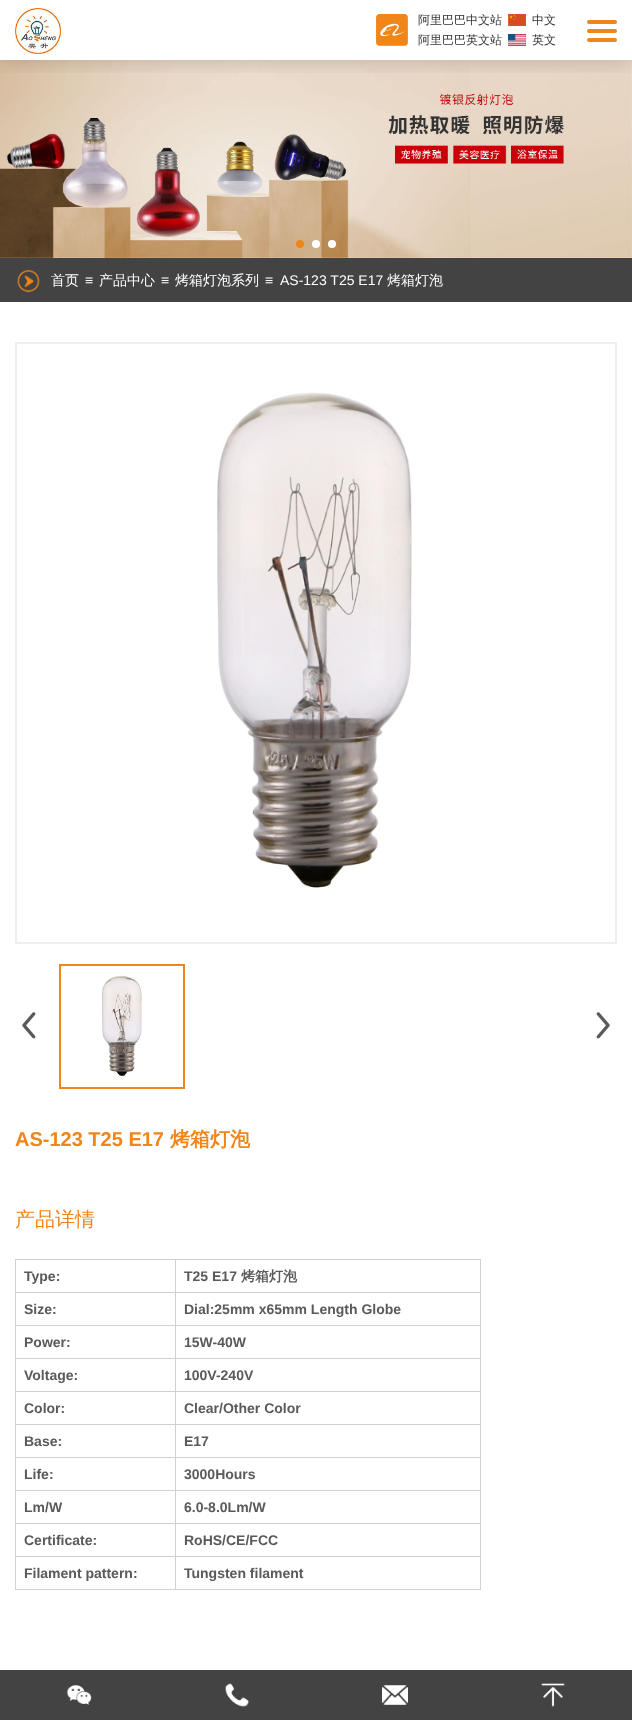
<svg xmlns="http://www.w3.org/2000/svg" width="632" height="1720">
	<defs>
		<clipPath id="clip1"><rect x="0" y="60" width="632" height="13" /></clipPath>
	</defs>
	<rect width="100%" height="100%" fill="#FFFFFF" />
	<image x="0" y="60" width="632" height="198" href="assets/img5.png" />
	<g clip-path="url(#clip1)">
		<rect x="0" y="2" width="632" height="60" fill="#000000" fill-opacity="0.16" filter="blur(10px)" />
	</g>
	<image x="15" y="8" width="46" height="46" href="assets/img1.png" />
	<image x="376" y="14" width="32" height="32" href="assets/img2.png" />
	<g font-family="WenQuanYi Zen Hei" font-size="12" font-weight="500" fill="#333333">
		<text x="418" y="24">阿里巴巴中文站</text>
		<text x="418" y="44">阿里巴巴英文站</text>
	</g>
	<image x="508" y="14" width="18" height="12" href="assets/img3.png" />
	<text x="532" y="24" font-family="WenQuanYi Zen Hei" font-size="12" font-weight="500" fill="#333333">中文</text>
	<image x="508" y="34" width="18" height="12" href="assets/img4.png" />
	<text x="532" y="44" font-family="WenQuanYi Zen Hei" font-size="12" font-weight="500" fill="#333333">英文</text>
	<rect x="587" y="20" width="30" height="4" rx="2" fill="#F08619" />
	<rect x="587" y="29" width="30" height="4" rx="2" fill="#F08619" />
	<rect x="587" y="38" width="30" height="4" rx="2" fill="#F08619" />
	<circle cx="300" cy="244" r="4" fill="#F08619" />
	<circle cx="316" cy="244" r="4" fill="#FFFFFF" />
	<circle cx="332" cy="244" r="4" fill="#FFFFFF" />
	<rect x="0" y="258" width="632" height="44" fill="#434343" />
	<image x="17" y="269" width="23" height="24" href="assets/img6.png" />
	<text x="51" y="285" font-family="WenQuanYi Zen Hei" font-size="14" font-weight="500" fill="#FFFFFF">首页</text>
	<text x="85" y="285" font-family="Liberation Sans" font-size="14" fill="#FFFFFF">≡</text>
	<text x="99" y="285" font-family="WenQuanYi Zen Hei" font-size="14" font-weight="500" fill="#FFFFFF">产品中心</text>
	<text x="161" y="285" font-family="Liberation Sans" font-size="14" fill="#FFFFFF">≡</text>
	<text x="175" y="285" font-family="WenQuanYi Zen Hei" font-size="14" font-weight="500" fill="#FFFFFF">烤箱灯泡系列</text>
	<g font-family="Liberation Sans" font-size="14" fill="#FFFFFF">
		<text x="265" y="285">≡</text>
		<text x="280" y="285">AS-123 T25 E17</text>
	</g>
	<text x="387" y="285" font-family="WenQuanYi Zen Hei" font-size="14" font-weight="500" fill="#FFFFFF">烤箱灯泡</text>
	<rect x="16" y="343" width="600" height="600" fill="none" stroke="#EEEEEE" stroke-width="2" />
	<image x="217" y="392" width="195" height="496" href="assets/img7.png" />
	<image x="22" y="1012" width="14" height="27" href="assets/img8.png" />
	<rect x="60" y="965" width="124" height="123" fill="none" stroke="#F08619" stroke-width="2" />
	<image x="102" y="975" width="40" height="101" href="assets/img9.png" />
	<image x="596" y="1012" width="14" height="27" href="assets/img10.png" />
	<text x="15" y="1146" font-family="Liberation Sans" font-size="20" font-weight="700" fill="#F08619">AS-123 T25 E17</text>
	<text x="170" y="1146" font-family="WenQuanYi Zen Hei" font-size="20" font-weight="700" fill="#F08619">烤箱灯泡</text>
	<text x="15" y="1226" font-family="WenQuanYi Zen Hei" font-size="20" font-weight="500" fill="#F08619">产品详情</text>
	<rect x="175" y="1259" width="306" height="1" fill="#D1D1D1" />
	<rect x="175" y="1292" width="306" height="1" fill="#D1D1D1" />
	<rect x="175" y="1325" width="306" height="1" fill="#D1D1D1" />
	<rect x="175" y="1358" width="306" height="1" fill="#D1D1D1" />
	<rect x="175" y="1391" width="306" height="1" fill="#D1D1D1" />
	<rect x="175" y="1424" width="306" height="1" fill="#D1D1D1" />
	<rect x="175" y="1457" width="306" height="1" fill="#D1D1D1" />
	<rect x="175" y="1490" width="306" height="1" fill="#D1D1D1" />
	<rect x="175" y="1523" width="306" height="1" fill="#D1D1D1" />
	<rect x="175" y="1556" width="306" height="1" fill="#D1D1D1" />
	<rect x="480" y="1556" width="1" height="34" fill="#D1D1D1" />
	<rect x="175" y="1589" width="306" height="1" fill="#D1D1D1" />
	<rect x="175" y="1556" width="1" height="34" fill="#D1D1D1" />
	<rect x="15" y="1556" width="161" height="1" fill="#D1D1D1" />
	<rect x="175" y="1523" width="1" height="34" fill="#D1D1D1" />
	<rect x="15" y="1523" width="161" height="1" fill="#D1D1D1" />
	<rect x="175" y="1490" width="1" height="34" fill="#D1D1D1" />
	<rect x="15" y="1490" width="161" height="1" fill="#D1D1D1" />
	<rect x="175" y="1457" width="1" height="34" fill="#D1D1D1" />
	<rect x="15" y="1457" width="161" height="1" fill="#D1D1D1" />
	<rect x="175" y="1424" width="1" height="34" fill="#D1D1D1" />
	<rect x="15" y="1424" width="161" height="1" fill="#D1D1D1" />
	<rect x="175" y="1391" width="1" height="34" fill="#D1D1D1" />
	<rect x="15" y="1391" width="161" height="1" fill="#D1D1D1" />
	<rect x="175" y="1358" width="1" height="34" fill="#D1D1D1" />
	<rect x="15" y="1358" width="161" height="1" fill="#D1D1D1" />
	<rect x="175" y="1325" width="1" height="34" fill="#D1D1D1" />
	<rect x="15" y="1325" width="161" height="1" fill="#D1D1D1" />
	<rect x="175" y="1292" width="1" height="34" fill="#D1D1D1" />
	<rect x="15" y="1292" width="161" height="1" fill="#D1D1D1" />
	<rect x="175" y="1259" width="1" height="34" fill="#D1D1D1" />
	<rect x="15" y="1259" width="161" height="1" fill="#D1D1D1" />
	<rect x="15" y="1589" width="161" height="1" fill="#D1D1D1" />
	<rect x="15" y="1556" width="1" height="34" fill="#D1D1D1" />
	<rect x="15" y="1523" width="1" height="34" fill="#D1D1D1" />
	<rect x="15" y="1490" width="1" height="34" fill="#D1D1D1" />
	<rect x="15" y="1457" width="1" height="34" fill="#D1D1D1" />
	<rect x="15" y="1424" width="1" height="34" fill="#D1D1D1" />
	<rect x="15" y="1391" width="1" height="34" fill="#D1D1D1" />
	<rect x="15" y="1358" width="1" height="34" fill="#D1D1D1" />
	<rect x="15" y="1325" width="1" height="34" fill="#D1D1D1" />
	<rect x="15" y="1292" width="1" height="34" fill="#D1D1D1" />
	<rect x="15" y="1259" width="1" height="34" fill="#D1D1D1" />
	<text x="24" y="1281" font-family="Liberation Sans" font-size="14" font-weight="700" fill="#5A5A5A">Type:</text>
	<rect x="480" y="1523" width="1" height="34" fill="#D1D1D1" />
	<rect x="480" y="1490" width="1" height="34" fill="#D1D1D1" />
	<rect x="480" y="1457" width="1" height="34" fill="#D1D1D1" />
	<rect x="480" y="1424" width="1" height="34" fill="#D1D1D1" />
	<rect x="480" y="1391" width="1" height="34" fill="#D1D1D1" />
	<rect x="480" y="1358" width="1" height="34" fill="#D1D1D1" />
	<rect x="480" y="1325" width="1" height="34" fill="#D1D1D1" />
	<rect x="480" y="1292" width="1" height="34" fill="#D1D1D1" />
	<rect x="480" y="1259" width="1" height="34" fill="#D1D1D1" />
	<text x="184" y="1281" font-family="Liberation Sans" font-size="14" font-weight="700" fill="#5A5A5A">T25 E17</text>
	<text x="241" y="1281" font-family="WenQuanYi Zen Hei" font-size="14" font-weight="700" fill="#5A5A5A">烤箱灯泡</text>
	<g font-family="Liberation Sans" font-size="14" font-weight="700" fill="#5A5A5A">
		<text x="24" y="1314">Size:</text>
		<text x="184" y="1314">Dial:25mm x65mm Length Globe</text>
		<text x="24" y="1347">Power:</text>
		<text x="184" y="1347">15W-40W</text>
		<text x="24" y="1380">Voltage:</text>
		<text x="184" y="1380">100V-240V</text>
		<text x="24" y="1413">Color:</text>
		<text x="184" y="1413">Clear/Other Color</text>
		<text x="24" y="1446">Base:</text>
		<text x="184" y="1446">E17</text>
		<text x="24" y="1479">Life:</text>
		<text x="184" y="1479">3000Hours</text>
		<text x="24" y="1512">Lm/W</text>
		<text x="184" y="1512">6.0-8.0Lm/W</text>
		<text x="24" y="1545">Certificate:</text>
		<text x="184" y="1545">RoHS/CE/FCC</text>
		<text x="24" y="1578">Filament pattern:</text>
		<text x="184" y="1578">Tungsten filament</text>
	</g>
	<rect x="0" y="1670" width="632" height="50" fill="#434343" />
	<image x="66" y="1685" width="26" height="20" href="assets/img11.png" />
	<image x="225" y="1683" width="24" height="24" href="assets/img12.png" />
	<image x="382" y="1685" width="26" height="20" href="assets/img13.png" />
	<image x="541" y="1683" width="24" height="24" href="assets/img14.png" />
</svg>
